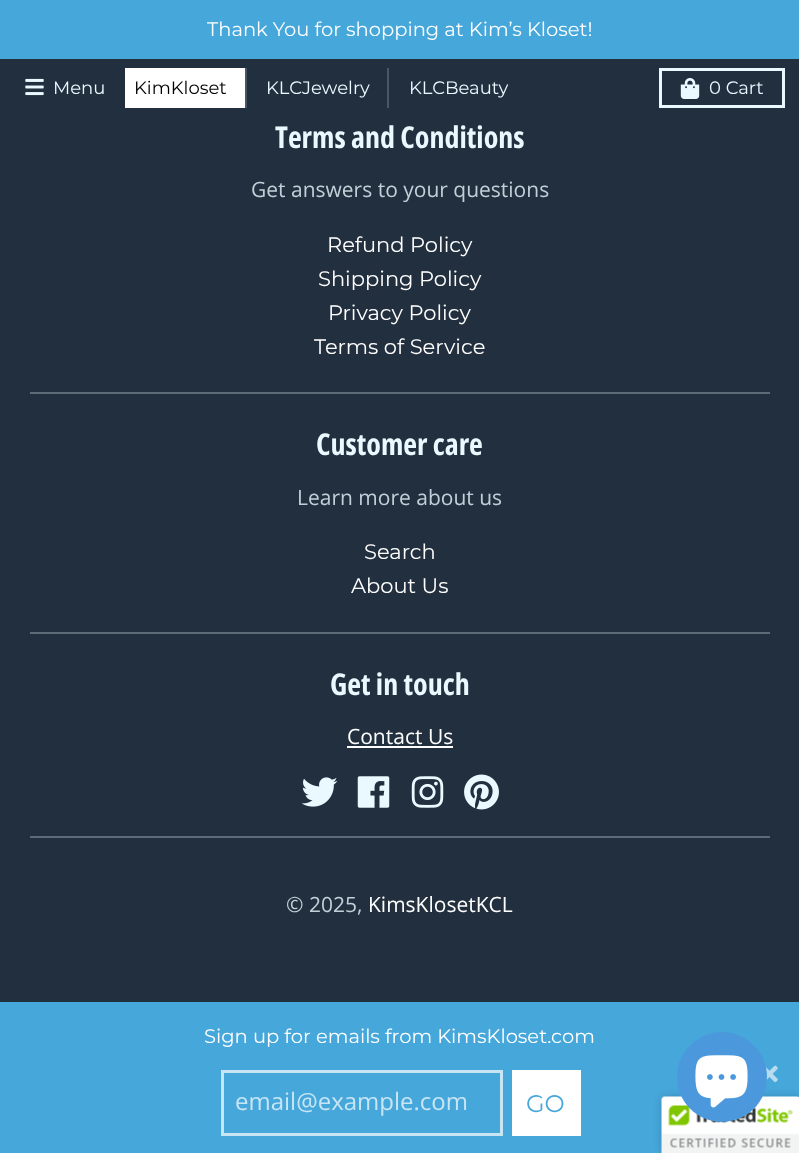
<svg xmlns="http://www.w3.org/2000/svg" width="799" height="1153">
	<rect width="100%" height="100%" fill="#222F3E" />
	<rect x="0" y="0" width="799" height="59" fill="#46A7DB" />
	<text x="207" y="36" font-family="Montserrat" font-size="19.5" fill="#FFFFFF">Thank You for shopping at Kim’s Kloset!</text>
	<rect x="0" y="1002" width="799" height="151" fill="#46A7DB" />
	<text x="204" y="1043" font-family="Montserrat" font-size="19.5" fill="#FFFFFF">Sign up for emails from KimsKloset.com</text>
	<image x="765" y="1065" width="13" height="18" href="assets/img1.png" />
	<rect x="222.5" y="1071.5" width="279" height="63" fill="none" stroke="#C8E5F4" stroke-width="3" />
	<text x="235" y="1110" font-family="Open Sans" font-size="24" fill="#C8E5F4">email@example.com</text>
	<rect x="512" y="1070" width="69" height="66" fill="#FFFFFF" />
	<text x="526" y="1112" font-family="Montserrat" font-size="24" fill="#46A7DB">GO</text>
	<image x="25" y="78" width="19" height="18" href="assets/img2.png" />
	<text x="53" y="94" font-family="Montserrat" font-size="18" fill="#E9F9FF">Menu</text>
	<rect x="125" y="68" width="120" height="40" fill="#FFFFFF" />
	<rect x="245" y="68" width="2" height="40" fill="#495764" />
	<text x="134" y="94" font-family="Montserrat" font-size="18" fill="#000000">KimKloset</text>
	<rect x="387" y="68" width="2" height="40" fill="#495764" />
	<g font-family="Montserrat" font-size="18" fill="#E9F9FF">
		<text x="266" y="94">KLCJewelry</text>
		<text x="409" y="94">KLCBeauty</text>
	</g>
	<rect x="660.5" y="69.5" width="123" height="37" fill="none" stroke="#E9F9FF" stroke-width="3" />
	<image x="680" y="78" width="20" height="21" href="assets/img3.png" />
	<text x="709" y="94" font-family="Montserrat" font-size="18" fill="#E9F9FF">0 Cart</text>
	<text x="275" y="148" font-family="Open Sans Condensed" font-size="30" font-weight="700" fill="#E9F9FF">Terms and Conditions</text>
	<text x="251" y="197" font-family="Open Sans" font-size="21" fill="#C1D0D8">Get answers to your questions</text>
	<rect x="30" y="392" width="740" height="2" fill="#5D6B77" />
	<g font-family="Montserrat" font-size="21" fill="#FFFFFF">
		<text x="327" y="252">Refund Policy</text>
		<text x="318" y="286">Shipping Policy</text>
		<text x="328" y="320">Privacy Policy</text>
		<text x="314" y="354">Terms of Service</text>
	</g>
	<text x="316" y="455" font-family="Open Sans Condensed" font-size="30" font-weight="700" fill="#E9F9FF">Customer care</text>
	<text x="297" y="505" font-family="Open Sans" font-size="21" fill="#C1D0D8">Learn more about us</text>
	<rect x="30" y="632" width="740" height="2" fill="#5D6B77" />
	<g font-family="Montserrat" font-size="21" fill="#FFFFFF">
		<text x="364" y="559">Search</text>
		<text x="351" y="593">About Us</text>
	</g>
	<text x="330" y="695" font-family="Open Sans Condensed" font-size="30" font-weight="700" fill="#E9F9FF">Get in touch</text>
	<text x="347" y="744" font-family="Open Sans" font-size="21" fill="#FFFFFF">Contact Us</text>
	<rect x="347" y="746" width="106" height="2" fill="#FFFFFF" />
	<image x="302" y="777" width="36" height="30" href="assets/img4.png" />
	<image x="357" y="776" width="33" height="32" href="assets/img5.png" />
	<image x="411" y="776" width="33" height="32" href="assets/img6.png" />
	<image x="464" y="774" width="35" height="36" href="assets/img7.png" />
	<rect x="30" y="836" width="740" height="2" fill="#5D6B77" />
	<text x="286" y="912" font-family="Open Sans" font-size="21" fill="#C1D0D8">© 2025,</text>
	<text x="368" y="912" font-family="Open Sans" font-size="21" fill="#FFFFFF">KimsKlosetKCL</text>
	<rect x="662" y="1097" width="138" height="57" rx="3" fill="#000000" fill-opacity="0.2" filter="blur(4px)" />
	<path d="M665 1097H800V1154H662V1100C662 1098.5 663.5 1097 665 1097Z" fill="#FFFFFF" />
	<image x="661" y="1096" width="138" height="57" href="assets/img9.png" />
	<circle cx="722" cy="1077" r="45" fill="#4B99DC" />
	<image x="695" y="1055" width="53" height="53" href="assets/img8.png" />
</svg>
